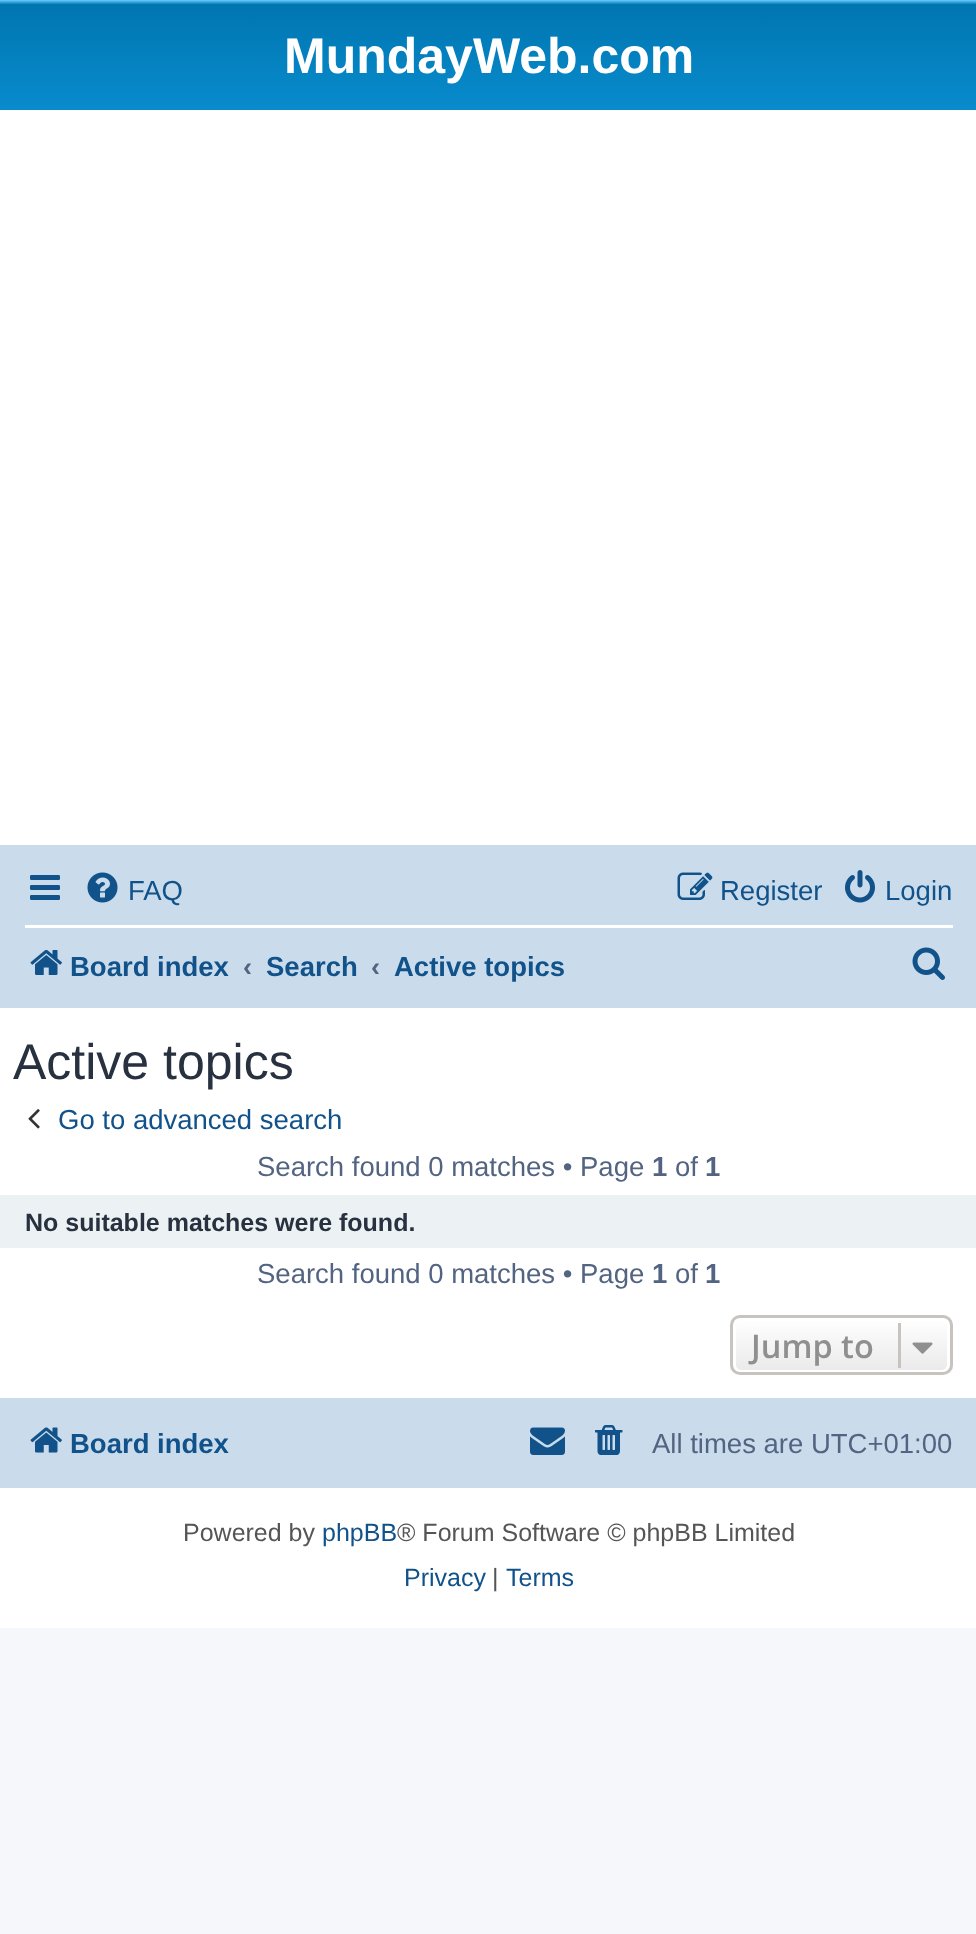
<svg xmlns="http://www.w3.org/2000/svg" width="976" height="1934">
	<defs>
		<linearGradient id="g1" gradientUnits="userSpaceOnUse" x1="489" y1="0" x2="489" y2="230"><stop offset="0" stop-color="#6ACEFF" /><stop offset="0.02" stop-color="#0076B1" /><stop offset="1" stop-color="#12A3EB" /></linearGradient>
		<clipPath id="clip1"><rect x="730" y="1315" width="223" height="60" rx="10" /></clipPath>
		<linearGradient id="g2" gradientUnits="userSpaceOnUse" x1="841" y1="1318" x2="841" y2="1373"><stop offset="0" stop-color="#FFFFFF" /><stop offset="1" stop-color="#E9E9E9" /></linearGradient>
	</defs>
	<rect width="100%" height="100%" fill="#F5F7FA" />
	<rect x="0" y="110" width="976" height="1518" fill="#FFFFFF" />
	<rect x="0" y="0" width="976" height="110" fill="url(#g1)" />
	<text x="284" y="73" font-family="Liberation Sans" font-size="50" font-weight="700" fill="#FFFFFF">MundayWeb.com</text>
	<rect x="0" y="845" width="976" height="163" fill="#CADCEB" />
	<image x="30" y="875" width="30" height="25" href="assets/img1.png" />
	<image x="87" y="872" width="31" height="31" href="assets/img2.png" />
	<text x="128" y="900" font-family="Liberation Sans" font-size="27.5" fill="#105289">FAQ</text>
	<image x="677" y="872" width="36" height="28" href="assets/img3.png" />
	<text x="720" y="900" font-family="Liberation Sans" font-size="27.5" fill="#105289">Register</text>
	<image x="845" y="870" width="30" height="33" href="assets/img4.png" />
	<text x="885" y="900" font-family="Liberation Sans" font-size="27.5" fill="#105289">Login</text>
	<rect x="25" y="925" width="928" height="3" fill="#FFFFFF" />
	<image x="30" y="949" width="32" height="26" href="assets/img5.png" />
	<text x="70" y="976" font-family="Liberation Sans" font-size="27.5" font-weight="700" fill="#105289">Board index</text>
	<text x="243" y="976" font-family="Liberation Sans" font-size="27.5" font-weight="700" fill="#536482">‹</text>
	<text x="266" y="976" font-family="Liberation Sans" font-size="27.5" font-weight="700" fill="#105289">Search</text>
	<text x="371" y="976" font-family="Liberation Sans" font-size="27.5" font-weight="700" fill="#536482">‹</text>
	<text x="394" y="976" font-family="Liberation Sans" font-size="27.5" font-weight="700" fill="#105289">Active topics</text>
	<image x="912" y="947" width="33" height="33" href="assets/img6.png" />
	<text x="13" y="1079" font-family="Liberation Sans" font-size="50" fill="#28313F">Active topics</text>
	<image x="28" y="1109" width="12" height="20" href="assets/img7.png" />
	<text x="58" y="1129" font-family="Liberation Sans" font-size="27.5" fill="#105289">Go to advanced search</text>
	<text x="257" y="1176" font-family="Liberation Sans" font-size="27.5" fill="#536482">Search found 0 matches • Page</text>
	<text x="652" y="1176" font-family="Liberation Sans" font-size="27.5" font-weight="700" fill="#536482">1</text>
	<text x="675" y="1176" font-family="Liberation Sans" font-size="27.5" fill="#536482">of</text>
	<text x="705" y="1176" font-family="Liberation Sans" font-size="27.5" font-weight="700" fill="#536482">1</text>
	<rect x="0" y="1195" width="976" height="53" fill="#ECF1F3" />
	<text x="25" y="1231" font-family="Liberation Sans" font-size="25" font-weight="700" fill="#28313F">No suitable matches were found.</text>
	<text x="257" y="1283" font-family="Liberation Sans" font-size="27.5" fill="#536482">Search found 0 matches • Page</text>
	<text x="652" y="1283" font-family="Liberation Sans" font-size="27.5" font-weight="700" fill="#536482">1</text>
	<text x="675" y="1283" font-family="Liberation Sans" font-size="27.5" fill="#536482">of</text>
	<text x="705" y="1283" font-family="Liberation Sans" font-size="27.5" font-weight="700" fill="#536482">1</text>
	<g clip-path="url(#clip1)">
		<rect x="730" y="1318" width="223" height="55" fill="url(#g2)" />
	</g>
	<rect x="734.5" y="1319.5" width="214" height="52" rx="6.5" fill="none" stroke="#FFFFFF" stroke-width="3" />
	<rect x="731.5" y="1316.5" width="220" height="57" rx="8.5" fill="none" stroke="#C7C3BF" stroke-width="3" />
	<text x="751" y="1358" font-family="Open Sans" font-size="32.5" font-weight="600" fill="#8F8F8F">Jump to</text>
	<rect x="898" y="1323" width="3" height="45" fill="#C7C3BF" />
	<image x="912" y="1342" width="21" height="12" href="assets/img8.png" />
	<rect x="0" y="1398" width="976" height="90" fill="#CADCEB" />
	<image x="30" y="1427" width="32" height="26" href="assets/img9.png" />
	<text x="70" y="1453" font-family="Liberation Sans" font-size="27.5" font-weight="700" fill="#105289">Board index</text>
	<image x="530" y="1427" width="35" height="28" href="assets/img10.png" />
	<image x="595" y="1425" width="28" height="30" href="assets/img11.png" />
	<text x="652" y="1453" font-family="Liberation Sans" font-size="27.5" fill="#536482">All times are UTC+01:00</text>
	<text x="183" y="1541" font-family="Liberation Sans" font-size="25" fill="#555555">Powered by</text>
	<text x="322" y="1541" font-family="Liberation Sans" font-size="25" fill="#105289">phpBB</text>
	<text x="397" y="1541" font-family="Liberation Sans" font-size="25" fill="#555555">® Forum Software © phpBB Limited</text>
	<text x="404" y="1586" font-family="Liberation Sans" font-size="25" fill="#105289">Privacy</text>
	<text x="492" y="1586" font-family="Liberation Sans" font-size="25" fill="#555555">|</text>
	<text x="506" y="1586" font-family="Liberation Sans" font-size="25" fill="#105289">Terms</text>
</svg>
